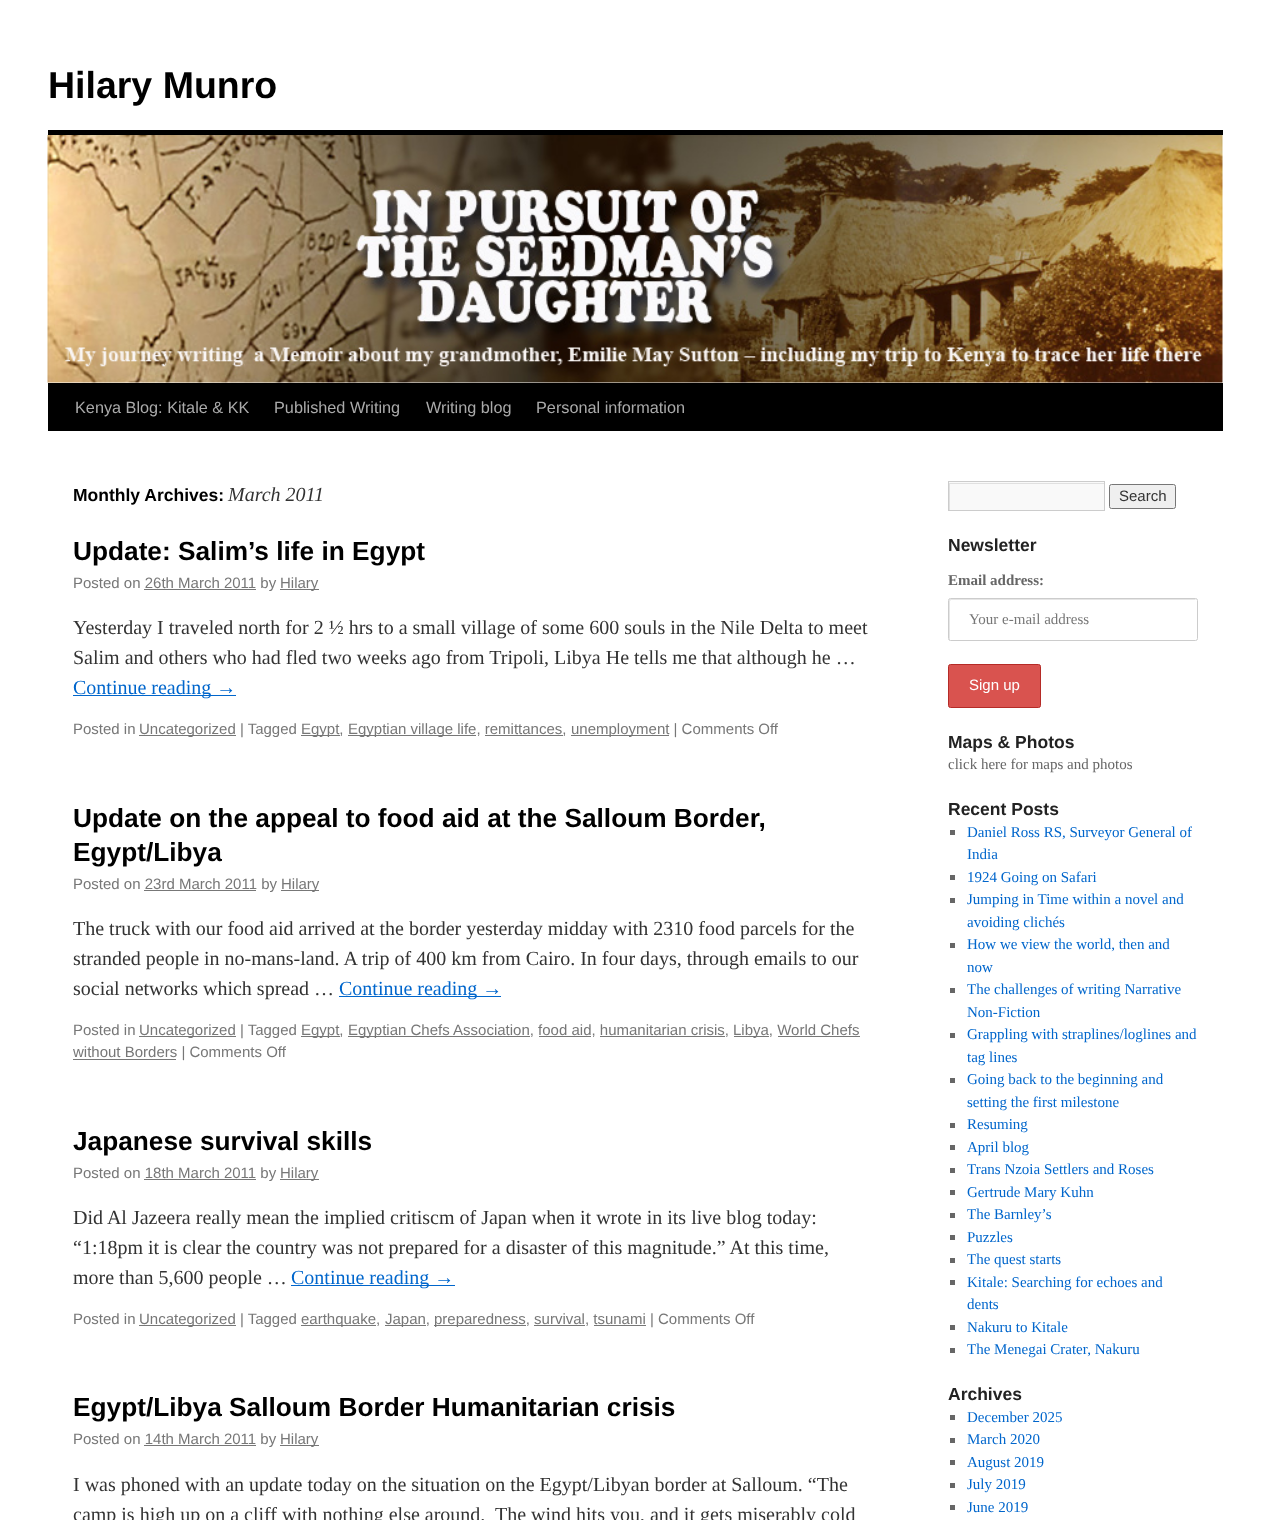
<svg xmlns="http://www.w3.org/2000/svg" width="1269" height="1520">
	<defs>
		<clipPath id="clip1"><rect x="949" y="483" width="155" height="27" /></clipPath>
	</defs>
	<rect width="100%" height="100%" fill="#FFFFFF" />
	<text x="48" y="98" font-family="Liberation Sans" font-size="37.5" font-weight="700" fill="#000000">Hilary Munro</text>
	<rect x="48" y="130" width="1175" height="5" fill="#000000" />
	<rect x="48" y="383" width="1175" height="48" fill="#000000" />
	<image x="47" y="135" width="1176" height="248" href="assets/img1.png" />
	<g font-family="Liberation Sans" font-size="16.25" fill="#AAAAAA">
		<text x="75" y="413">Kenya Blog: Kitale &amp; KK</text>
		<text x="274" y="413">Published Writing</text>
		<text x="426" y="413">Writing blog</text>
		<text x="536" y="413">Personal information</text>
	</g>
	<text x="73" y="501" font-family="Liberation Sans" font-size="17.5" font-weight="700" fill="#000000">Monthly Archives:</text>
	<text x="228" y="501" font-family="Liberation Serif" font-size="20" font-style="italic" fill="#333333">March 2011</text>
	<text x="73" y="560" font-family="Liberation Sans" font-size="26.25" font-weight="700" fill="#000000">Update: Salim’s life in Egypt</text>
	<text x="73" y="588" font-family="Liberation Sans" font-size="15" fill="#777777">Posted on 26th March 2011 by</text>
	<rect x="280" y="589" width="39" height="1" fill="#777777" />
	<text x="280" y="588" font-family="Liberation Sans" font-size="15" fill="#777777">Hilary</text>
	<rect x="144" y="589" width="112" height="1" fill="#777777" />
	<g font-family="Liberation Serif" font-size="20" fill="#333333">
		<text x="73" y="634">Yesterday I traveled north for 2 ½ hrs to a small village of some 600 souls in the Nile Delta to meet</text>
		<text x="73" y="664">Salim and others who had fled two weeks ago from Tripoli, Libya He tells me that although he …</text>
	</g>
	<rect x="73" y="695" width="163" height="1" fill="#0066CC" />
	<text x="73" y="694" font-family="Liberation Serif" font-size="20" fill="#0066CC">Continue reading →</text>
	<text x="73" y="734" font-family="Liberation Sans" font-size="15" fill="#777777">Posted in</text>
	<rect x="139" y="735" width="97" height="1" fill="#777777" />
	<text x="139" y="734" font-family="Liberation Sans" font-size="15" fill="#777777">Uncategorized | Tagged</text>
	<rect x="301" y="735" width="39" height="1" fill="#777777" />
	<text x="301" y="734" font-family="Liberation Sans" font-size="15" fill="#777777">Egypt,</text>
	<rect x="348" y="735" width="128" height="1" fill="#777777" />
	<text x="348" y="734" font-family="Liberation Sans" font-size="15" fill="#777777">Egyptian village life, remittances,</text>
	<rect x="485" y="735" width="78" height="1" fill="#777777" />
	<rect x="571" y="735" width="98" height="1" fill="#777777" />
	<text x="571" y="734" font-family="Liberation Sans" font-size="15" fill="#777777">unemployment | Comments Off</text>
	<g font-family="Liberation Sans" font-size="26.25" font-weight="700" fill="#000000">
		<text x="73" y="827">Update on the appeal to food aid at the Salloum Border,</text>
		<text x="73" y="861">Egypt/Libya</text>
	</g>
	<text x="73" y="889" font-family="Liberation Sans" font-size="15" fill="#777777">Posted on 23rd March 2011 by</text>
	<rect x="281" y="890" width="38" height="1" fill="#777777" />
	<text x="281" y="889" font-family="Liberation Sans" font-size="15" fill="#777777">Hilary</text>
	<rect x="144" y="890" width="112" height="1" fill="#777777" />
	<g font-family="Liberation Serif" font-size="20" fill="#333333">
		<text x="73" y="935">The truck with our food aid arrived at the border yesterday midday with 2310 food parcels for the</text>
		<text x="73" y="965">stranded people in no-mans-land. A trip of 400 km from Cairo. In four days, through emails to our</text>
		<text x="73" y="995">social networks which spread …</text>
	</g>
	<rect x="339" y="996" width="162" height="1" fill="#0066CC" />
	<text x="339" y="995" font-family="Liberation Serif" font-size="20" fill="#0066CC">Continue reading →</text>
	<text x="73" y="1035" font-family="Liberation Sans" font-size="15" fill="#777777">Posted in</text>
	<rect x="139" y="1036" width="97" height="1" fill="#777777" />
	<text x="139" y="1035" font-family="Liberation Sans" font-size="15" fill="#777777">Uncategorized | Tagged</text>
	<rect x="301" y="1036" width="39" height="1" fill="#777777" />
	<text x="301" y="1035" font-family="Liberation Sans" font-size="15" fill="#777777">Egypt,</text>
	<rect x="348" y="1036" width="182" height="1" fill="#777777" />
	<text x="348" y="1035" font-family="Liberation Sans" font-size="15" fill="#777777">Egyptian Chefs Association, food aid, humanitarian crisis,</text>
	<rect x="539" y="1036" width="52" height="1" fill="#777777" />
	<rect x="600" y="1036" width="125" height="1" fill="#777777" />
	<rect x="734" y="1036" width="35" height="1" fill="#777777" />
	<text x="733" y="1035" font-family="Liberation Sans" font-size="15" fill="#777777">Libya, World Chefs</text>
	<rect x="778" y="1036" width="82" height="1" fill="#777777" />
	<rect x="73" y="1059" width="103" height="1" fill="#777777" />
	<text x="73" y="1057" font-family="Liberation Sans" font-size="15" fill="#777777">without Borders | Comments Off</text>
	<text x="73" y="1150" font-family="Liberation Sans" font-size="26.25" font-weight="700" fill="#000000">Japanese survival skills</text>
	<text x="73" y="1178" font-family="Liberation Sans" font-size="15" fill="#777777">Posted on 18th March 2011 by</text>
	<rect x="280" y="1179" width="39" height="1" fill="#777777" />
	<text x="280" y="1178" font-family="Liberation Sans" font-size="15" fill="#777777">Hilary</text>
	<rect x="144" y="1179" width="112" height="1" fill="#777777" />
	<g font-family="Liberation Serif" font-size="20" fill="#333333">
		<text x="73" y="1224">Did Al Jazeera really mean the implied critiscm of Japan when it wrote in its live blog today:</text>
		<text x="73" y="1254">“1:18pm it is clear the country was not prepared for a disaster of this magnitude.” At this time,</text>
		<text x="73" y="1284">more than 5,600 people …</text>
	</g>
	<rect x="291" y="1285" width="164" height="1" fill="#0066CC" />
	<text x="291" y="1284" font-family="Liberation Serif" font-size="20" fill="#0066CC">Continue reading →</text>
	<text x="73" y="1324" font-family="Liberation Sans" font-size="15" fill="#777777">Posted in</text>
	<rect x="139" y="1325" width="97" height="1" fill="#777777" />
	<text x="139" y="1324" font-family="Liberation Sans" font-size="15" fill="#777777">Uncategorized | Tagged</text>
	<rect x="301" y="1325" width="75" height="1" fill="#777777" />
	<text x="301" y="1324" font-family="Liberation Sans" font-size="15" fill="#777777">earthquake,</text>
	<rect x="385" y="1325" width="41" height="1" fill="#777777" />
	<text x="385" y="1324" font-family="Liberation Sans" font-size="15" fill="#777777">Japan,</text>
	<rect x="434" y="1325" width="92" height="1" fill="#777777" />
	<text x="434" y="1324" font-family="Liberation Sans" font-size="15" fill="#777777">preparedness, survival, tsunami | Comments Off</text>
	<rect x="534" y="1325" width="51" height="1" fill="#777777" />
	<rect x="594" y="1325" width="52" height="1" fill="#777777" />
	<text x="73" y="1416" font-family="Liberation Sans" font-size="26.25" font-weight="700" fill="#000000">Egypt/Libya Salloum Border Humanitarian crisis</text>
	<text x="73" y="1444" font-family="Liberation Sans" font-size="15" fill="#777777">Posted on 14th March 2011 by</text>
	<rect x="280" y="1445" width="39" height="1" fill="#777777" />
	<text x="280" y="1444" font-family="Liberation Sans" font-size="15" fill="#777777">Hilary</text>
	<rect x="144" y="1445" width="112" height="1" fill="#777777" />
	<g font-family="Liberation Serif" font-size="20" fill="#333333">
		<text x="73" y="1491">I was phoned with an update today on the situation on the Egypt/Libyan border at Salloum. “The</text>
		<text x="73" y="1521" xml:space="preserve">camp is high up on a cliff with nothing else around.  The wind hits you, and it gets miserably cold</text>
	</g>
	<rect x="949" y="482" width="155" height="28" fill="#F9F9F9" />
	<g clip-path="url(#clip1)">
		<path d="M825 359H1228V634H825ZM950 484H1105V511H950Z" fill="#E0E0E0" fill-rule="evenodd" />
	</g>
	<rect x="948.5" y="481.5" width="156" height="29" fill="none" stroke="#CCCCCC" />
	<rect x="1109.5" y="484.5" width="66" height="24" rx="2" fill="#EFEFEF" stroke="#767676" />
	<text x="1119" y="501" font-family="Liberation Sans" font-size="15" fill="#333333">Search</text>
	<text x="948" y="551" font-family="Liberation Sans" font-size="17.5" font-weight="700" fill="#222222">Newsletter</text>
	<text x="948" y="585" font-family="Liberation Serif" font-size="15" font-weight="700" fill="#666666">Email address:</text>
	<path d="M951 600H1196L1195 599H950L949 600V640H950V601Z" fill="#E6E6E6" />
	<rect x="948.5" y="598.5" width="249" height="42" rx="2" fill="none" stroke="#CCCCCC" />
	<text x="969" y="624" font-family="Liberation Serif" font-size="15" fill="#777777">Your e-mail address</text>
	<rect x="948.5" y="664.5" width="92" height="43" rx="2" fill="#D9534F" stroke="#B52B27" />
	<text x="969" y="690" font-family="Liberation Sans" font-size="15" fill="#FFFFFF">Sign up</text>
	<text x="948" y="748" font-family="Liberation Sans" font-size="17.5" font-weight="700" fill="#222222">Maps &amp; Photos</text>
	<text x="948" y="769" font-family="Liberation Serif" font-size="15" fill="#666666">click here for maps and photos</text>
	<text x="948" y="815" font-family="Liberation Sans" font-size="17.5" font-weight="700" fill="#222222">Recent Posts</text>
	<rect x="950" y="830" width="5" height="5" fill="#666666" />
	<g font-family="Liberation Serif" font-size="15" fill="#0066CC">
		<text x="967" y="837">Daniel Ross RS, Surveyor General of</text>
		<text x="967" y="859">India</text>
	</g>
	<rect x="950" y="875" width="5" height="5" fill="#666666" />
	<text x="967" y="882" font-family="Liberation Serif" font-size="15" fill="#0066CC">1924 Going on Safari</text>
	<rect x="950" y="898" width="5" height="5" fill="#666666" />
	<g font-family="Liberation Serif" font-size="15" fill="#0066CC">
		<text x="967" y="904">Jumping in Time within a novel and</text>
		<text x="967" y="927">avoiding clichés</text>
	</g>
	<rect x="950" y="943" width="5" height="5" fill="#666666" />
	<g font-family="Liberation Serif" font-size="15" fill="#0066CC">
		<text x="967" y="949">How we view the world, then and</text>
		<text x="967" y="972">now</text>
	</g>
	<rect x="950" y="988" width="5" height="5" fill="#666666" />
	<g font-family="Liberation Serif" font-size="15" fill="#0066CC">
		<text x="967" y="994">The challenges of writing Narrative</text>
		<text x="967" y="1017">Non-Fiction</text>
	</g>
	<rect x="950" y="1033" width="5" height="5" fill="#666666" />
	<g font-family="Liberation Serif" font-size="15" fill="#0066CC">
		<text x="967" y="1039">Grappling with straplines/loglines and</text>
		<text x="967" y="1062">tag lines</text>
	</g>
	<rect x="950" y="1078" width="5" height="5" fill="#666666" />
	<g font-family="Liberation Serif" font-size="15" fill="#0066CC">
		<text x="967" y="1084">Going back to the beginning and</text>
		<text x="967" y="1107">setting the first milestone</text>
	</g>
	<rect x="950" y="1123" width="5" height="5" fill="#666666" />
	<text x="967" y="1129" font-family="Liberation Serif" font-size="15" fill="#0066CC">Resuming</text>
	<rect x="950" y="1145" width="5" height="5" fill="#666666" />
	<text x="967" y="1152" font-family="Liberation Serif" font-size="15" fill="#0066CC">April blog</text>
	<rect x="950" y="1168" width="5" height="5" fill="#666666" />
	<text x="967" y="1174" font-family="Liberation Serif" font-size="15" fill="#0066CC">Trans Nzoia Settlers and Roses</text>
	<rect x="950" y="1190" width="5" height="5" fill="#666666" />
	<text x="967" y="1197" font-family="Liberation Serif" font-size="15" fill="#0066CC">Gertrude Mary Kuhn</text>
	<rect x="950" y="1213" width="5" height="5" fill="#666666" />
	<text x="967" y="1219" font-family="Liberation Serif" font-size="15" fill="#0066CC">The Barnley’s</text>
	<rect x="950" y="1235" width="5" height="5" fill="#666666" />
	<text x="967" y="1242" font-family="Liberation Serif" font-size="15" fill="#0066CC">Puzzles</text>
	<rect x="950" y="1258" width="5" height="5" fill="#666666" />
	<text x="967" y="1264" font-family="Liberation Serif" font-size="15" fill="#0066CC">The quest starts</text>
	<rect x="950" y="1280" width="5" height="5" fill="#666666" />
	<g font-family="Liberation Serif" font-size="15" fill="#0066CC">
		<text x="967" y="1287">Kitale: Searching for echoes and</text>
		<text x="967" y="1309">dents</text>
	</g>
	<rect x="950" y="1325" width="5" height="5" fill="#666666" />
	<text x="967" y="1332" font-family="Liberation Serif" font-size="15" fill="#0066CC">Nakuru to Kitale</text>
	<rect x="950" y="1348" width="5" height="5" fill="#666666" />
	<text x="967" y="1354" font-family="Liberation Serif" font-size="15" fill="#0066CC">The Menegai Crater, Nakuru</text>
	<text x="948" y="1400" font-family="Liberation Sans" font-size="17.5" font-weight="700" fill="#222222">Archives</text>
	<rect x="950" y="1415" width="5" height="5" fill="#666666" />
	<text x="967" y="1422" font-family="Liberation Serif" font-size="15" fill="#0066CC">December 2025</text>
	<rect x="950" y="1438" width="5" height="5" fill="#666666" />
	<text x="967" y="1444" font-family="Liberation Serif" font-size="15" fill="#0066CC">March 2020</text>
	<rect x="950" y="1460" width="5" height="5" fill="#666666" />
	<text x="967" y="1467" font-family="Liberation Serif" font-size="15" fill="#0066CC">August 2019</text>
	<rect x="950" y="1483" width="5" height="5" fill="#666666" />
	<text x="967" y="1489" font-family="Liberation Serif" font-size="15" fill="#0066CC">July 2019</text>
	<rect x="950" y="1505" width="5" height="5" fill="#666666" />
	<text x="967" y="1512" font-family="Liberation Serif" font-size="15" fill="#0066CC">June 2019</text>
</svg>
